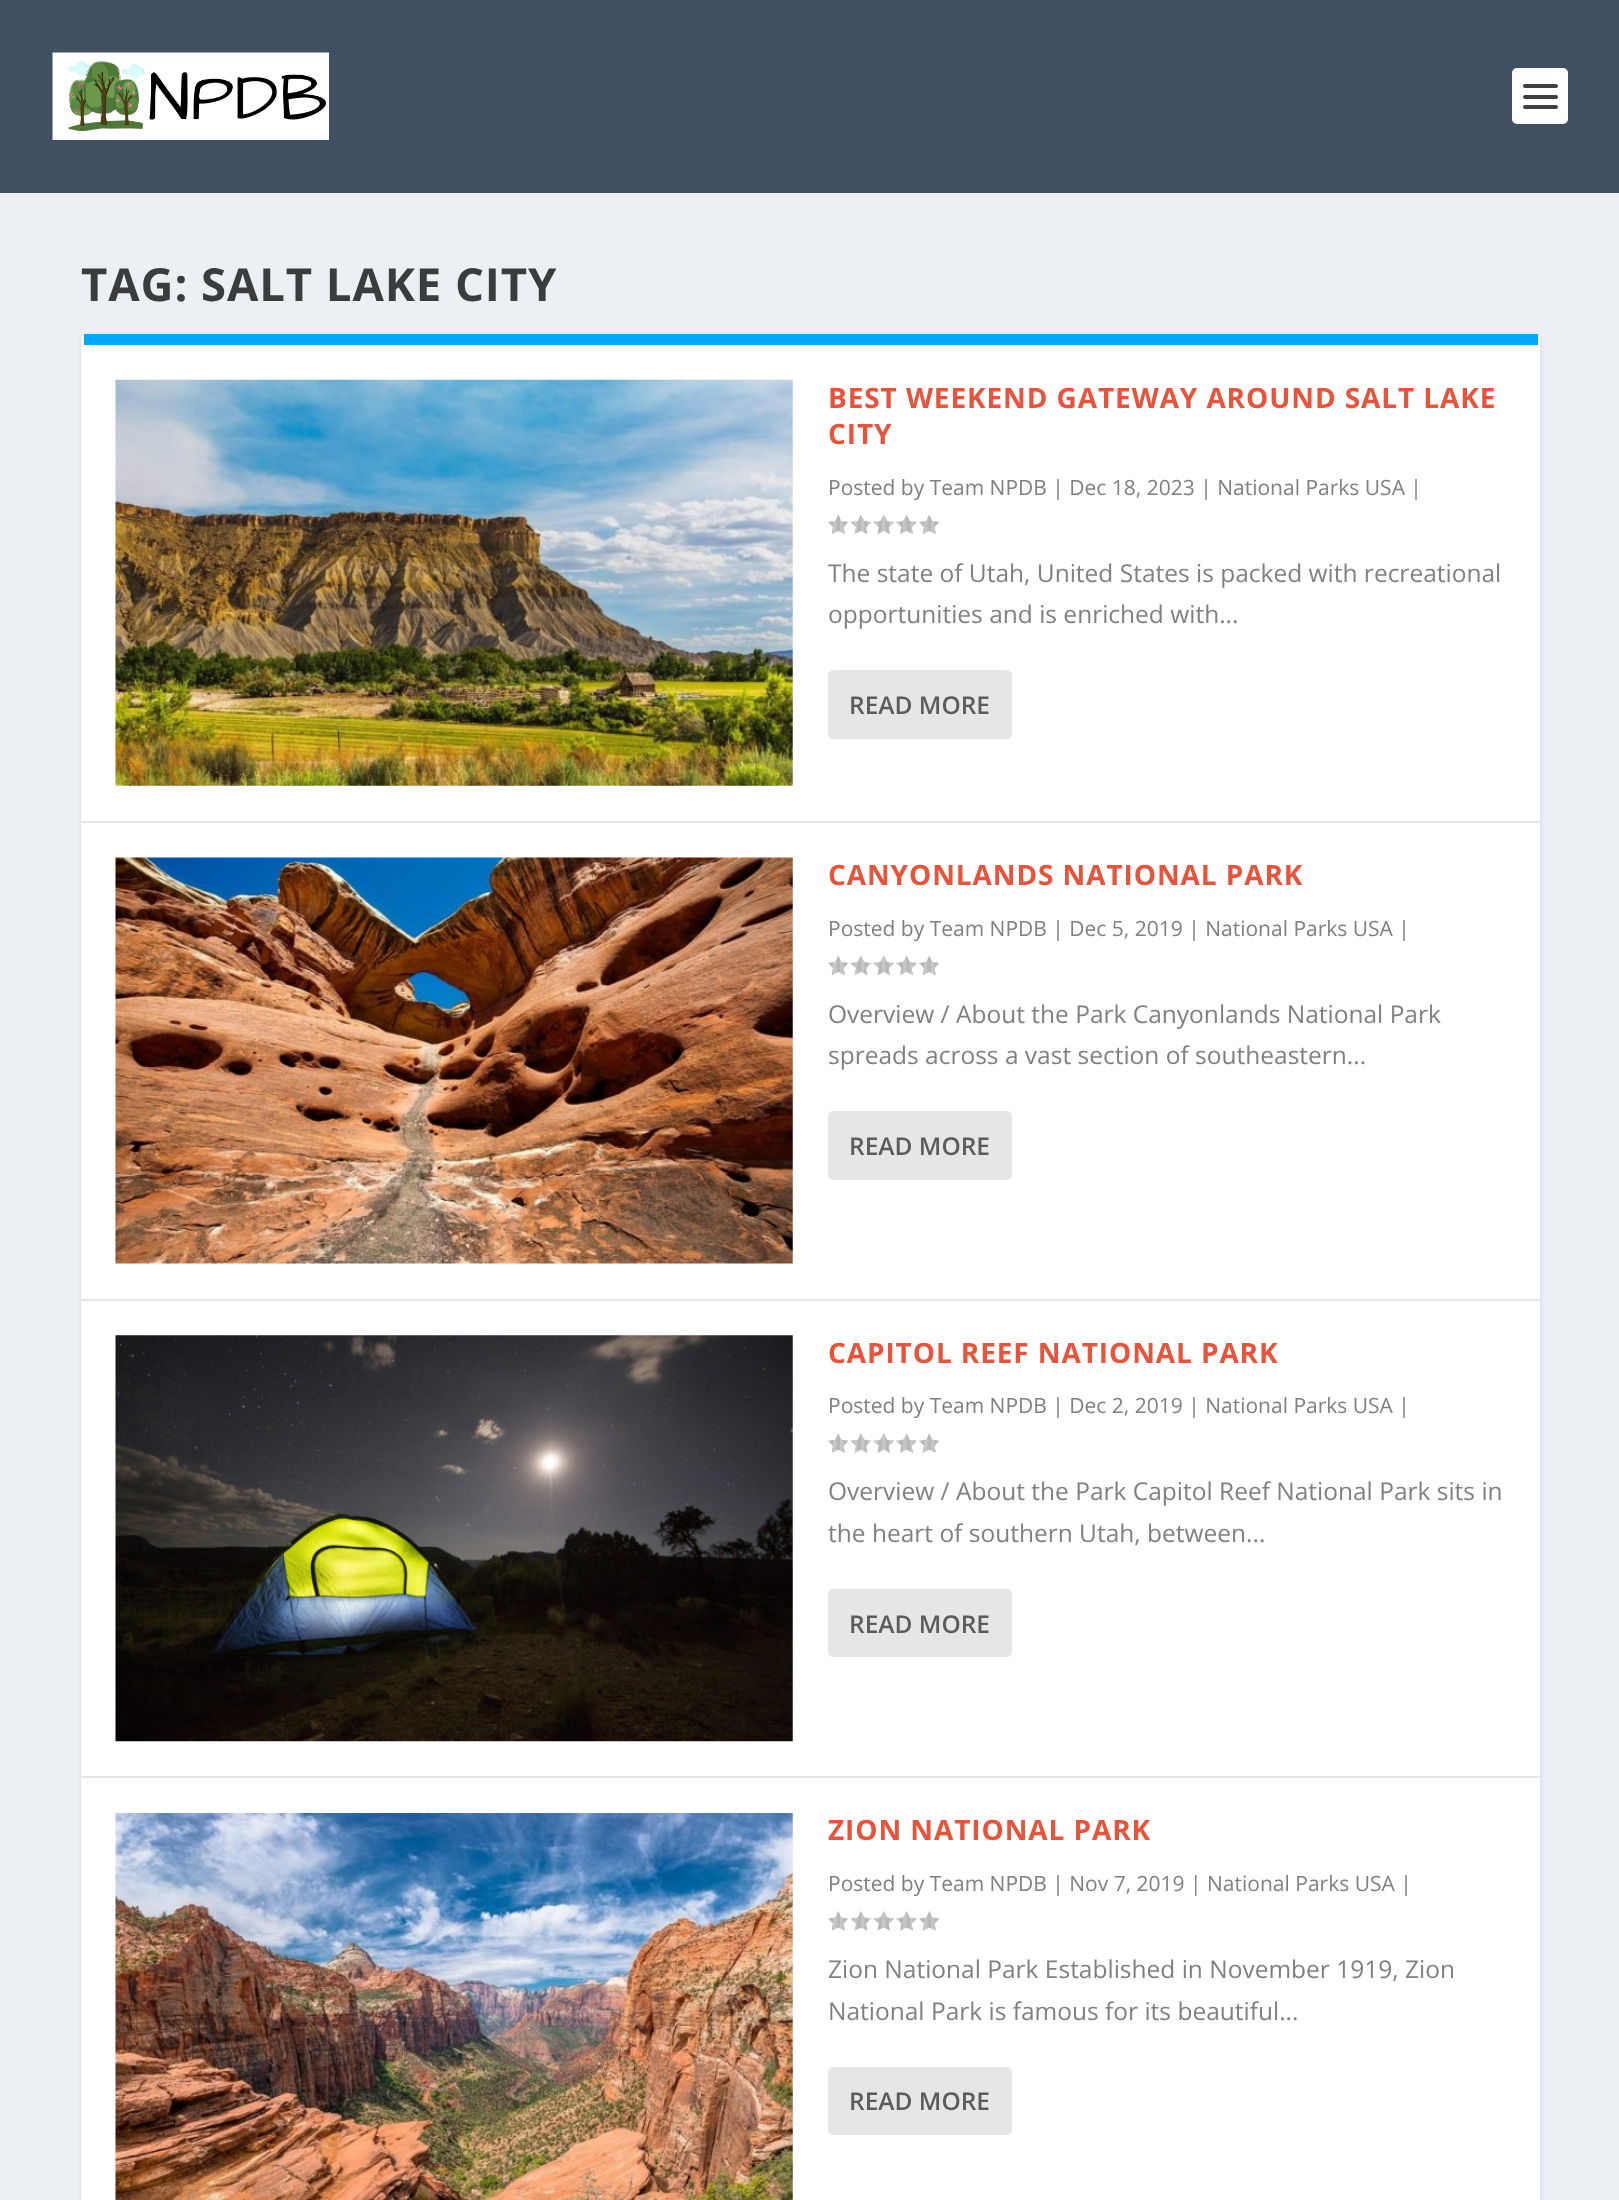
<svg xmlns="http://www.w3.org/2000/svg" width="1619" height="2200">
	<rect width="100%" height="100%" fill="#ECF0F5" />
	<rect x="0" y="0" width="1619" height="193" fill="#3E5062" />
	<image x="52" y="52" width="277" height="88" href="assets/img1.png" />
	<rect x="1512" y="68" width="56" height="56" rx="5" fill="#FFFFFF" />
	<rect x="1523" y="84" width="35" height="4" rx="2" fill="#404040" />
	<rect x="1523" y="95" width="35" height="4" rx="2" fill="#404040" />
	<rect x="1523" y="105" width="35" height="4" rx="2" fill="#404040" />
	<text x="81" y="301" font-family="Open Sans" font-size="45.5" font-weight="700" letter-spacing="0.9" fill="#3B3C3D">TAG: SALT LAKE CITY</text>
	<rect x="81" y="336" width="1459" height="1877" rx="5" fill="#000000" fill-opacity="0.1" filter="blur(2.5px)" />
	<rect x="81" y="334" width="1459" height="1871" rx="5" fill="#FFFFFF" />
	<rect x="84" y="334" width="1454" height="11" fill="#00A8FF" />
	<rect x="81" y="821" width="1459" height="2" fill="#E6E6E6" />
	<image x="115" y="379" width="678" height="407" href="assets/img2.png" />
	<g font-family="Open Sans" font-size="28" font-weight="700" letter-spacing="0.9" fill="#E8533B">
		<text x="828" y="408">BEST WEEKEND GATEWAY AROUND SALT LAKE</text>
		<text x="828" y="444">CITY</text>
	</g>
	<text x="828" y="495" font-family="Open Sans" font-size="21" fill="#808080">Posted by Team NPDB | Dec 18, 2023 | National Parks USA |</text>
	<image x="828" y="514" width="21" height="21" href="assets/img3.png" />
	<image x="850" y="514" width="22" height="21" href="assets/img4.png" />
	<image x="873" y="514" width="21" height="21" href="assets/img5.png" />
	<image x="896" y="514" width="21" height="21" href="assets/img6.png" />
	<image x="919" y="514" width="21" height="21" href="assets/img3.png" />
	<g font-family="Open Sans" font-size="24.5" fill="#808080">
		<text x="828" y="582">The state of Utah, United States is packed with recreational</text>
		<text x="828" y="623">opportunities and is enriched with...</text>
	</g>
	<rect x="828" y="670" width="184" height="69" rx="5" fill="#E6E6E6" />
	<text x="849" y="714" font-family="Open Sans" font-size="24.5" font-weight="600" fill="#5C5C5C">READ MORE</text>
	<rect x="81" y="1299" width="1459" height="2" fill="#E6E6E6" />
	<image x="115" y="857" width="678" height="407" href="assets/img7.png" />
	<text x="828" y="885" font-family="Open Sans" font-size="28" font-weight="700" letter-spacing="0.9" fill="#E8533B">CANYONLANDS NATIONAL PARK</text>
	<text x="828" y="936" font-family="Open Sans" font-size="21" fill="#808080">Posted by Team NPDB | Dec 5, 2019 | National Parks USA |</text>
	<image x="828" y="955" width="21" height="21" href="assets/img3.png" />
	<image x="850" y="955" width="22" height="21" href="assets/img4.png" />
	<image x="873" y="955" width="21" height="21" href="assets/img5.png" />
	<image x="896" y="955" width="21" height="21" href="assets/img6.png" />
	<image x="919" y="955" width="21" height="21" href="assets/img3.png" />
	<g font-family="Open Sans" font-size="24.5" fill="#808080">
		<text x="828" y="1023">Overview / About the Park Canyonlands National Park</text>
		<text x="828" y="1064">spreads across a vast section of southeastern...</text>
	</g>
	<rect x="828" y="1111" width="184" height="69" rx="5" fill="#E6E6E6" />
	<text x="849" y="1155" font-family="Open Sans" font-size="24.5" font-weight="600" fill="#5C5C5C">READ MORE</text>
	<rect x="81" y="1776" width="1459" height="2" fill="#E6E6E6" />
	<image x="115" y="1335" width="678" height="407" href="assets/img8.png" />
	<text x="828" y="1363" font-family="Open Sans" font-size="28" font-weight="700" letter-spacing="0.9" fill="#E8533B">CAPITOL REEF NATIONAL PARK</text>
	<text x="828" y="1413" font-family="Open Sans" font-size="21" fill="#808080">Posted by Team NPDB | Dec 2, 2019 | National Parks USA |</text>
	<image x="828" y="1433" width="21" height="20" href="assets/img9.png" />
	<image x="850" y="1433" width="22" height="20" href="assets/img10.png" />
	<image x="873" y="1433" width="21" height="20" href="assets/img11.png" />
	<image x="896" y="1433" width="21" height="20" href="assets/img12.png" />
	<image x="919" y="1433" width="21" height="20" href="assets/img9.png" />
	<g font-family="Open Sans" font-size="24.5" fill="#808080">
		<text x="828" y="1500">Overview / About the Park Capitol Reef National Park sits in</text>
		<text x="828" y="1542">the heart of southern Utah, between...</text>
	</g>
	<rect x="828" y="1589" width="184" height="68" rx="5" fill="#E6E6E6" />
	<text x="849" y="1633" font-family="Open Sans" font-size="24.5" font-weight="600" fill="#5C5C5C">READ MORE</text>
	<image x="115" y="1813" width="678" height="387" href="assets/img13.png" />
	<text x="828" y="1840" font-family="Open Sans" font-size="28" font-weight="700" letter-spacing="0.9" fill="#E8533B">ZION NATIONAL PARK</text>
	<text x="828" y="1891" font-family="Open Sans" font-size="21" fill="#808080">Posted by Team NPDB | Nov 7, 2019 | National Parks USA |</text>
	<image x="828" y="1911" width="21" height="20" href="assets/img14.png" />
	<image x="850" y="1911" width="22" height="20" href="assets/img15.png" />
	<image x="873" y="1911" width="21" height="20" href="assets/img16.png" />
	<image x="896" y="1911" width="21" height="20" href="assets/img17.png" />
	<image x="919" y="1911" width="21" height="20" href="assets/img14.png" />
	<g font-family="Open Sans" font-size="24.5" fill="#808080">
		<text x="828" y="1978">Zion National Park Established in November 1919, Zion</text>
		<text x="828" y="2020">National Park is famous for its beautiful...</text>
	</g>
	<rect x="828" y="2067" width="184" height="68" rx="5" fill="#E6E6E6" />
	<text x="849" y="2110" font-family="Open Sans" font-size="24.5" font-weight="600" fill="#5C5C5C">READ MORE</text>
</svg>
